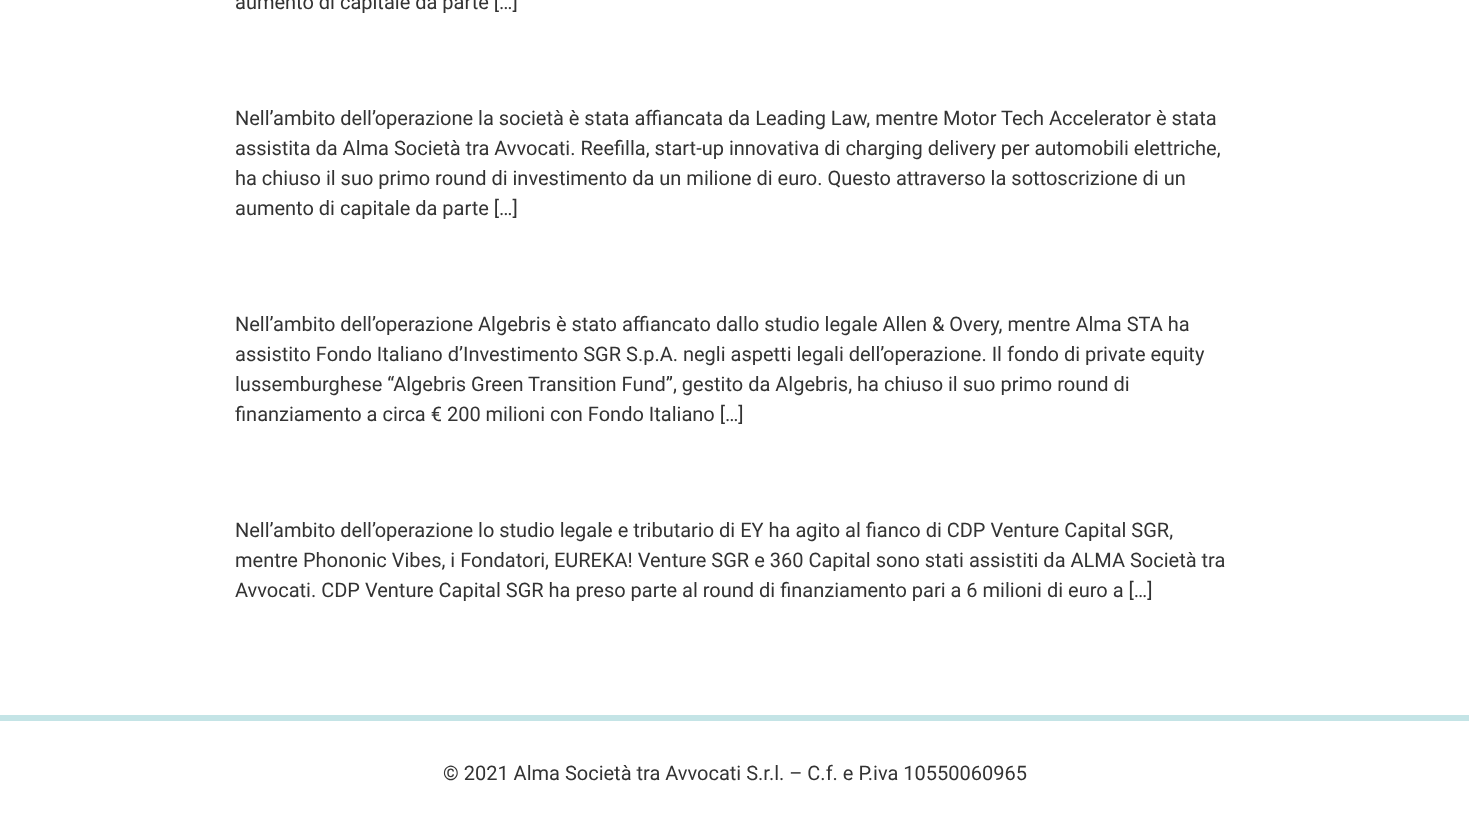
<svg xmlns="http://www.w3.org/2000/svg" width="1469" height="825">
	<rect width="100%" height="100%" fill="#FFFFFF" />
	<g font-family="Roboto" font-size="20" fill="#333333">
		<text x="235" y="9">aumento di capitale da parte […]</text>
		<text x="235" y="125">Nell’ambito dell’operazione la società è stata affiancata da Leading Law, mentre Motor Tech Accelerator è stata</text>
		<text x="235" y="155">assistita da Alma Società tra Avvocati. Reefilla, start-up innovativa di charging delivery per automobili elettriche,</text>
		<text x="235" y="185">ha chiuso il suo primo round di investimento da un milione di euro. Questo attraverso la sottoscrizione di un</text>
		<text x="235" y="215">aumento di capitale da parte […]</text>
		<text x="235" y="331">Nell’ambito dell’operazione Algebris è stato affiancato dallo studio legale Allen &amp; Overy, mentre Alma STA ha</text>
		<text x="235" y="361">assistito Fondo Italiano d’Investimento SGR S.p.A. negli aspetti legali dell’operazione. Il fondo di private equity</text>
		<text x="235" y="391">lussemburghese “Algebris Green Transition Fund”, gestito da Algebris, ha chiuso il suo primo round di</text>
		<text x="235" y="421">finanziamento a circa € 200 milioni con Fondo Italiano […]</text>
		<text x="235" y="537">Nell’ambito dell’operazione lo studio legale e tributario di EY ha agito al fianco di CDP Venture Capital SGR,</text>
		<text x="235" y="567">mentre Phononic Vibes, i Fondatori, EUREKA! Venture SGR e 360 Capital sono stati assistiti da ALMA Società tra</text>
		<text x="235" y="597">Avvocati. CDP Venture Capital SGR ha preso parte al round di finanziamento pari a 6 milioni di euro a […]</text>
	</g>
	<rect x="0" y="715" width="1469" height="6" fill="#C4E4E6" />
	<text x="443" y="780" font-family="Roboto" font-size="20" fill="#333333">© 2021 Alma Società tra Avvocati S.r.l. – C.f. e P.iva 10550060965</text>
</svg>
